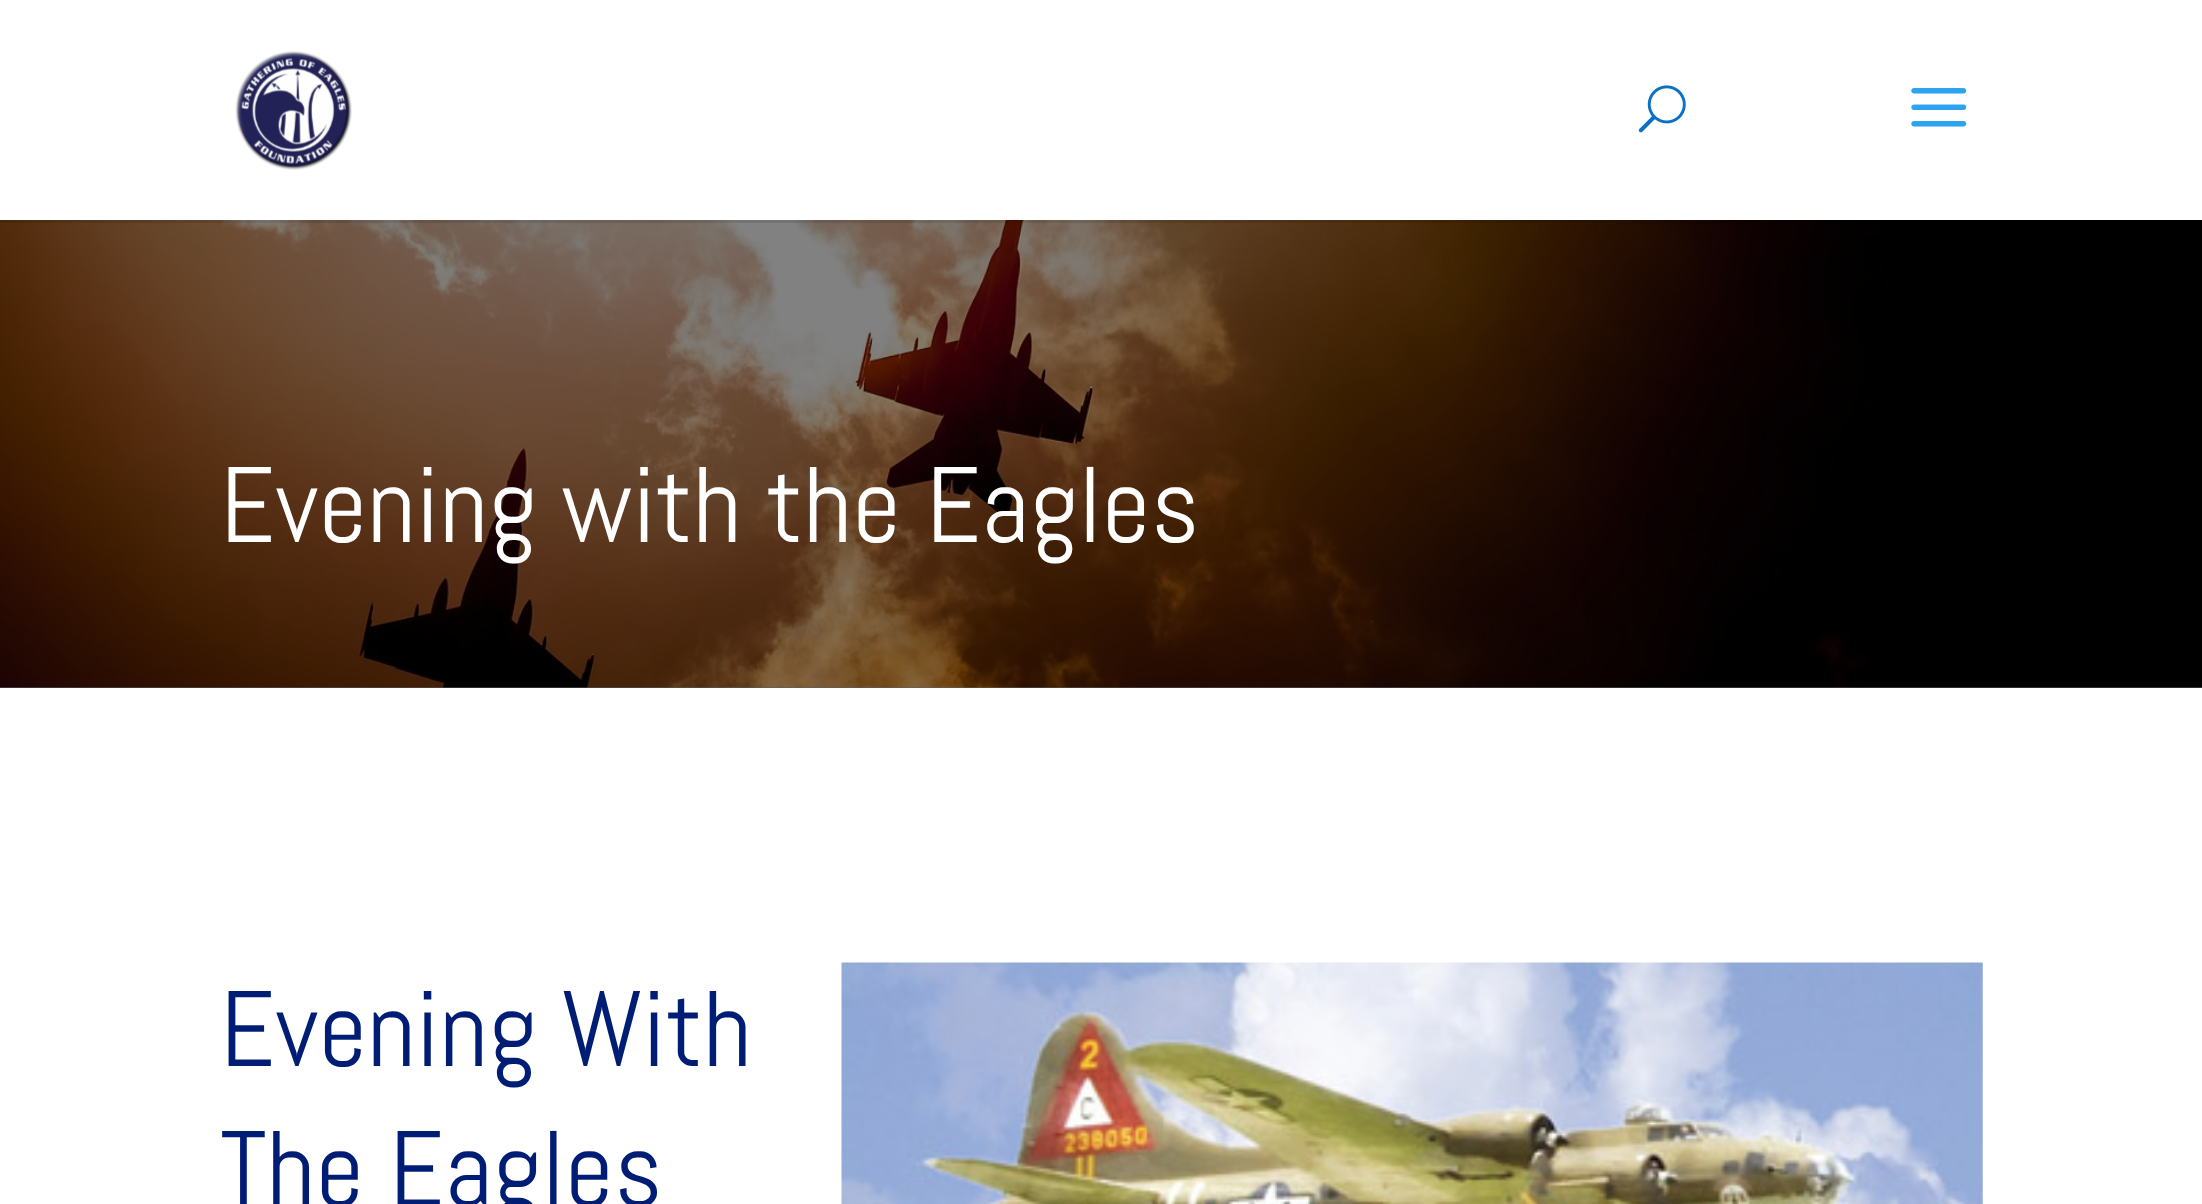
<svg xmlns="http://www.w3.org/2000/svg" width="2202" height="1204">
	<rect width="100%" height="100%" fill="#FFFFFF" />
	<rect x="0" y="687" width="2202" height="1" fill="#576065" />
	<image x="0" y="220" width="2202" height="468" href="assets/img4.png" />
	<path d="M0 220V223H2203V3V220Z" fill="#000000" fill-opacity="0.1" />
	<image x="235" y="51" width="117" height="119" href="assets/img1.png" />
	<image x="1638" y="85" width="48" height="48" href="assets/img2.png" />
	<image x="1911" y="88" width="56" height="39" href="assets/img3.png" />
	<text x="220" y="542" font-family="Abel" font-size="107.25" fill="#FFFFFF">Evening with the Eagles</text>
	<text x="220" y="1066" font-family="Abel" font-size="107.25" fill="#001D75">Evening With</text>
	<image x="841" y="962" width="1142" height="242" href="assets/img5.png" />
	<text x="220" y="1206" font-family="Abel" font-size="107.25" fill="#001D75">The Eagles</text>
</svg>
